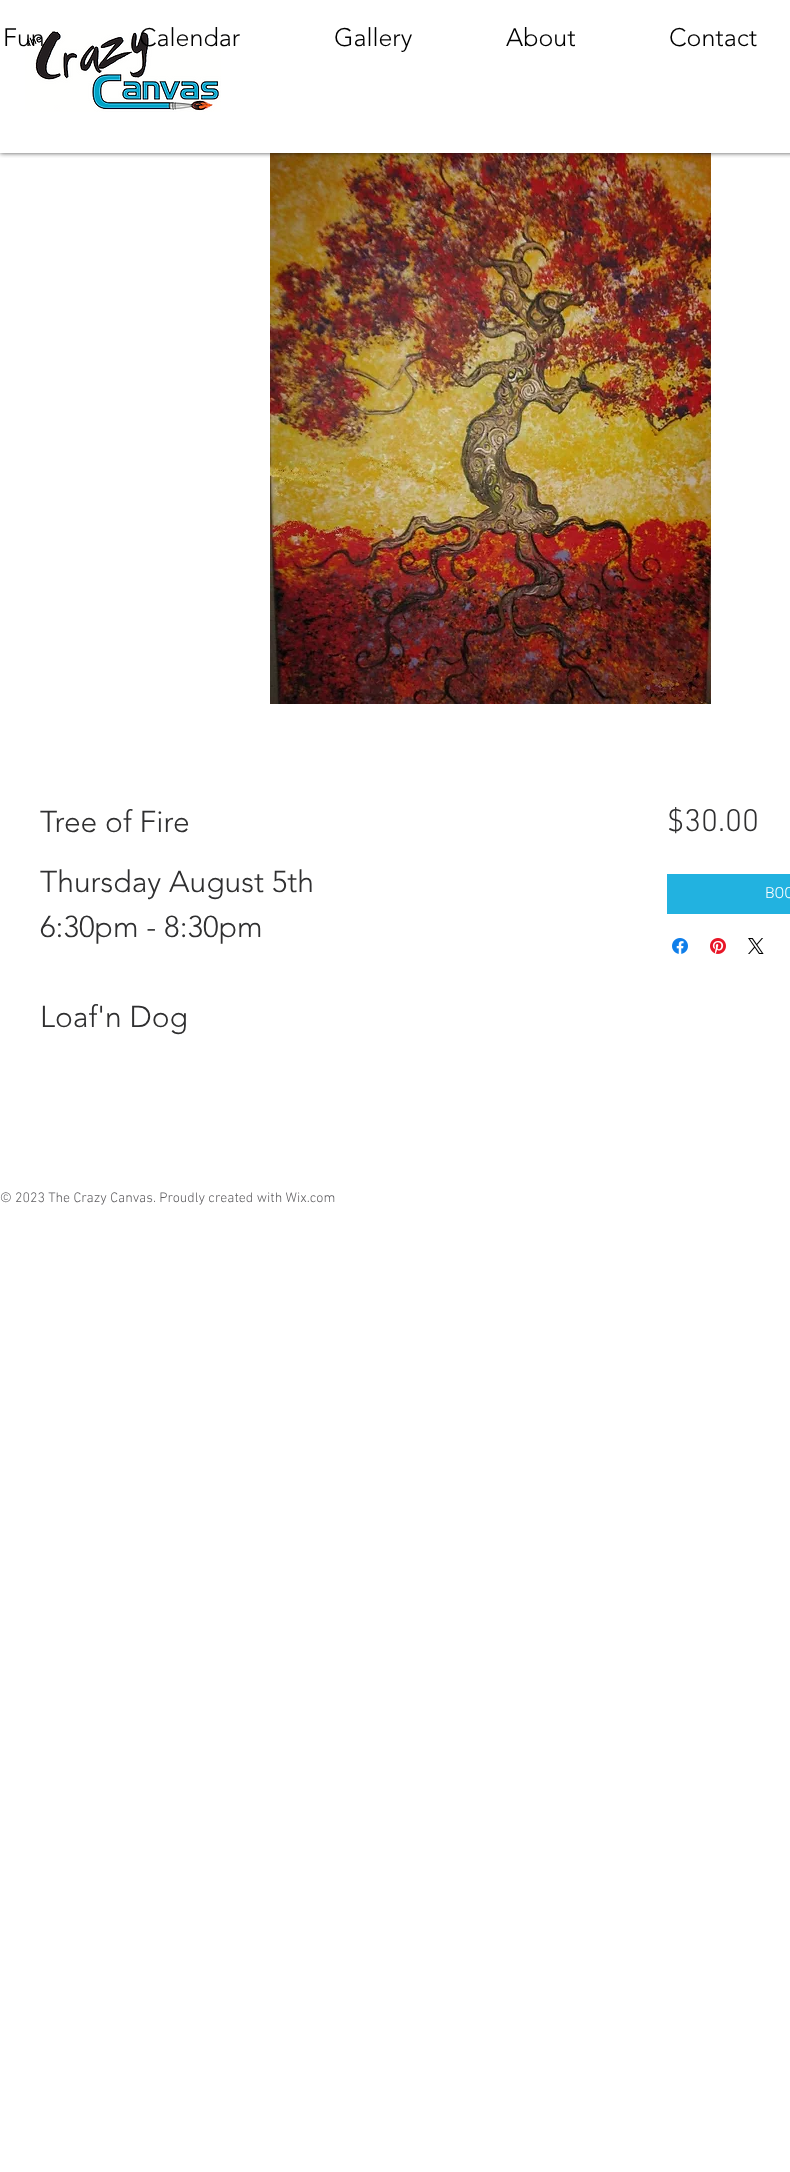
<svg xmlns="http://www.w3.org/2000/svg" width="790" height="2172">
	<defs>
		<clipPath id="clip1"><rect x="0" y="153" width="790" height="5" /></clipPath>
	</defs>
	<rect width="100%" height="100%" fill="#FFFFFF" />
	<image x="270" y="153" width="441" height="551" href="assets/img2.png" />
	<g clip-path="url(#clip1)">
		<rect x="0" y="0" width="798" height="153" fill="#000000" fill-opacity="0.7" filter="blur(2.5px)" />
	</g>
	<image x="25" y="30" width="196" height="82" href="assets/img1.png" />
	<g font-family="'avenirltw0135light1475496'" font-size="25" font-weight="300" fill="#000000">
		<text x="3" y="46">Fun</text>
		<text x="139" y="46">Calendar</text>
		<text x="334" y="46">Gallery</text>
		<text x="506" y="46">About</text>
		<text x="669" y="46">Contact</text>
	</g>
	<g font-family="'avenirltw0135light1475496'" font-size="30" font-weight="300" fill="#2F2F30">
		<text x="40" y="832">Tree of Fire</text>
		<text x="40" y="892">Thursday August 5th</text>
		<text x="40" y="937">6:30pm - 8:30pm</text>
		<text x="40" y="1027">Loaf'n Dog</text>
	</g>
	<text x="667" y="831" font-family="'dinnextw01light'" font-size="32" font-weight="300" fill="#2F2F30">$30.00</text>
	<rect x="667" y="874" width="123" height="40" fill="#22B2E0" />
	<text x="765" y="898" font-family="'dinnextw01light'" font-size="16" font-weight="300" fill="#FFFFFF">BOO</text>
	<image x="672" y="938" width="16" height="16" href="assets/img3.png" />
	<image x="710" y="938" width="16" height="16" href="assets/img4.png" />
	<image x="748" y="938" width="16" height="16" href="assets/img5.png" />
	<text x="0" y="1202" font-family="'dinnextw01light'" font-size="14" font-weight="300" fill="#5F5E61">© 2023 The Crazy Canvas. Proudly created with Wix.com</text>
</svg>
